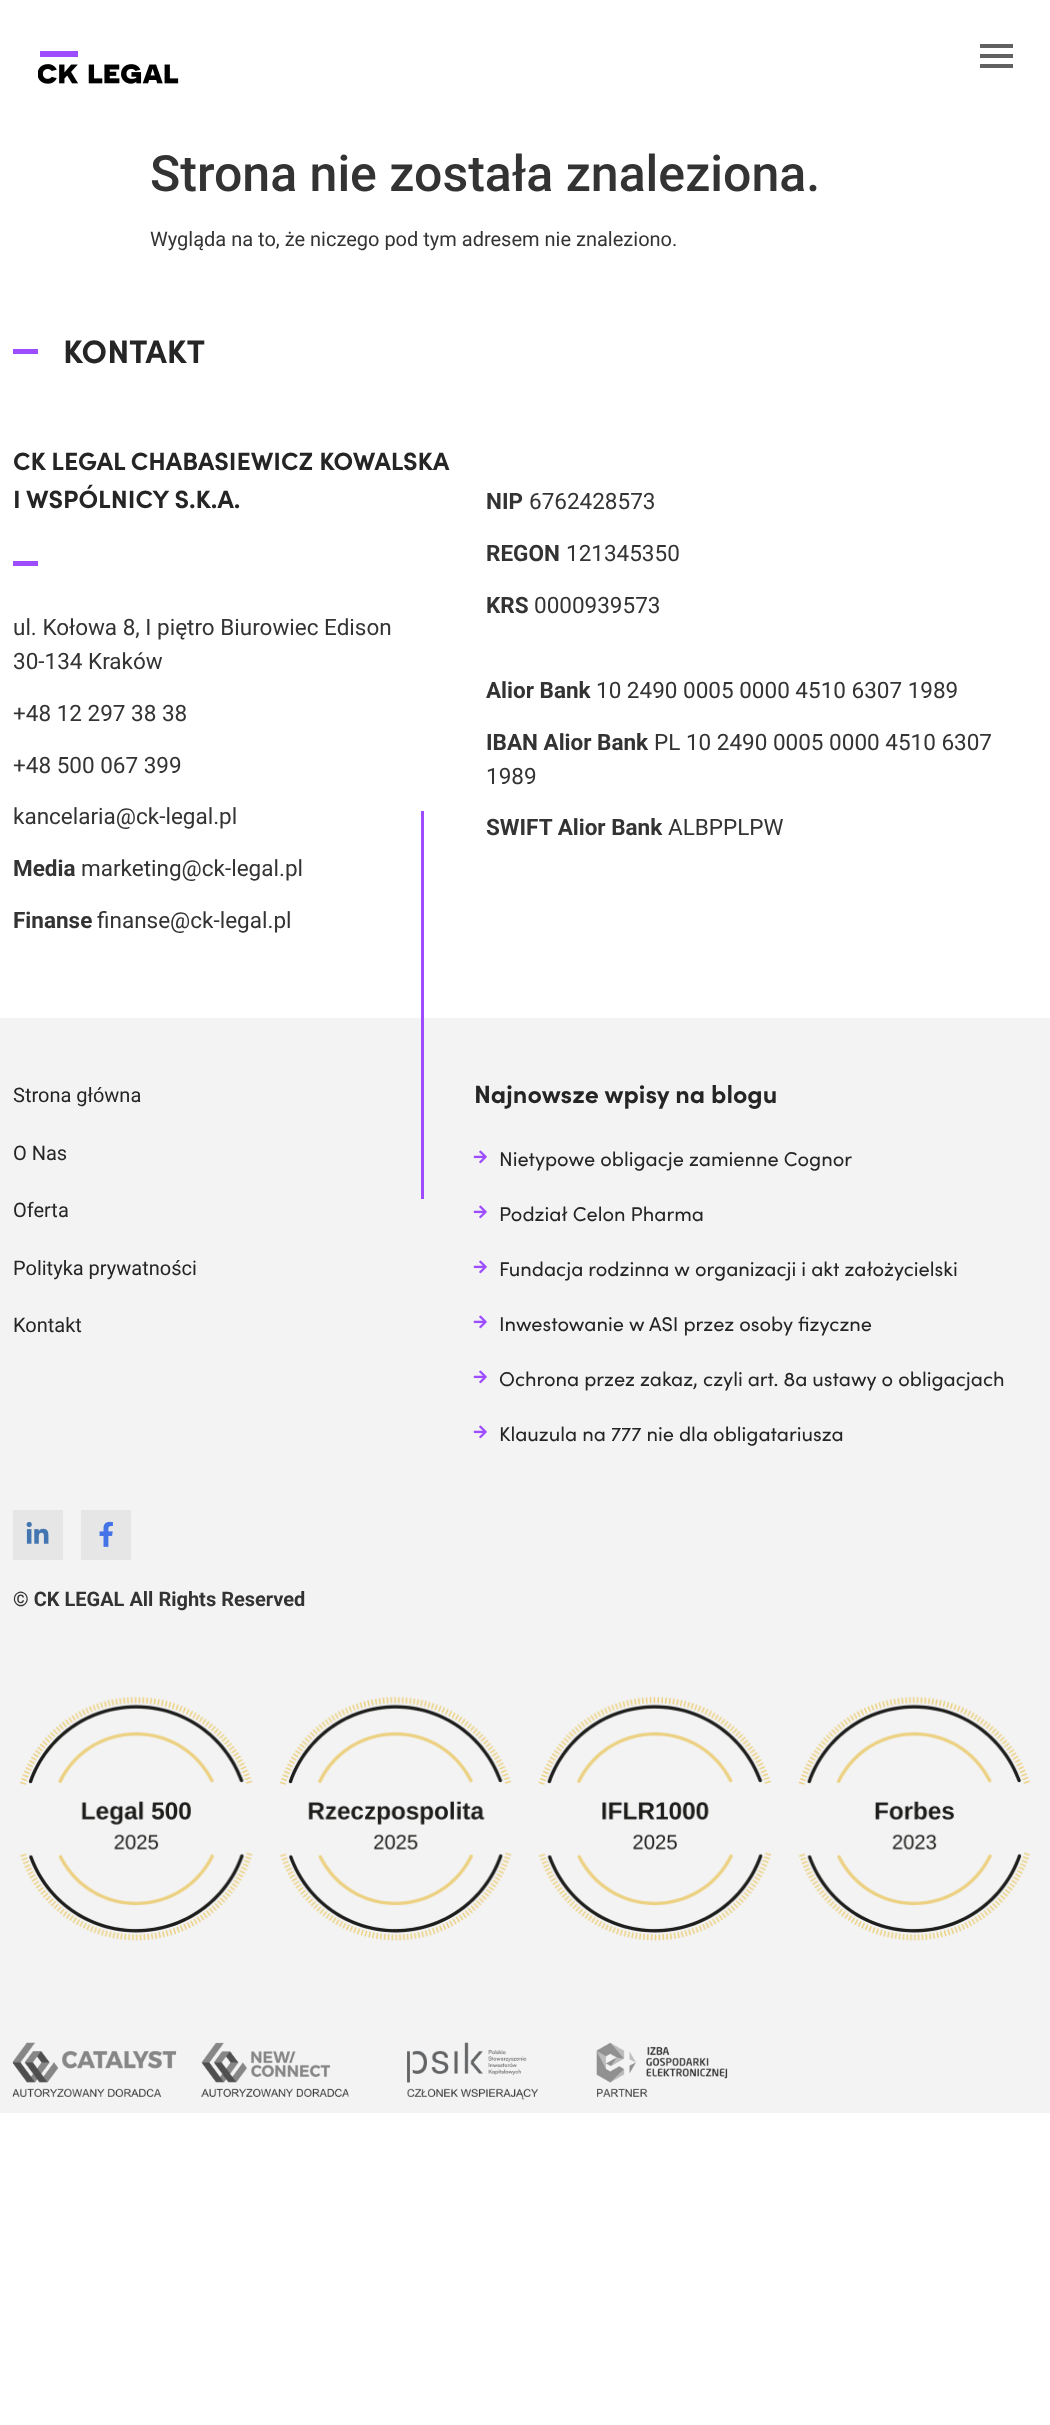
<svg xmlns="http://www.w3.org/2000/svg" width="1050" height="2425">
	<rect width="100%" height="100%" fill="#FFFFFF" />
	<image x="38" y="51" width="141" height="33" href="assets/img1.png" />
	<rect x="980" y="54" width="33" height="4" fill="#616161" />
	<rect x="980" y="44" width="33" height="4" fill="#616161" />
	<rect x="980" y="64" width="33" height="4" fill="#616161" />
	<text x="150" y="191" font-family="Roboto" font-size="50" font-weight="500" fill="#333333">Strona nie została znaleziona.</text>
	<text x="150" y="246" font-family="Roboto" font-size="20" fill="#333333">Wygląda na to, że niczego pod tym adresem nie znaleziono.</text>
	<rect x="13" y="349" width="25" height="5" fill="#9D4CFF" />
	<text x="63" y="363" font-family="Sofia" font-size="32.5" font-weight="700" fill="#252525">KONTAKT</text>
	<g font-family="Sofia" font-size="25" font-weight="700" fill="#252525">
		<text x="13" y="470">CK LEGAL CHABASIEWICZ KOWALSKA</text>
		<text x="13" y="508">I WSPÓLNICY S.K.A.</text>
	</g>
	<rect x="13" y="561" width="25" height="5" fill="#9D4CFF" />
	<g font-family="Roboto" font-size="22.5" fill="#333333">
		<text x="13" y="635">ul. Kołowa 8, I piętro Biurowiec Edison</text>
		<text x="13" y="669">30-134 Kraków</text>
		<text x="13" y="721">+48 12 297 38 38</text>
		<text x="13" y="773">+48 500 067 399</text>
		<text x="13" y="824">kancelaria@ck-legal.pl</text>
	</g>
	<text x="13" y="876" font-family="Roboto" font-size="22.5" font-weight="700" fill="#333333">Media</text>
	<text x="81" y="876" font-family="Roboto" font-size="22.5" fill="#333333">marketing@ck-legal.pl</text>
	<text x="13" y="928" font-family="Roboto" font-size="22.5" font-weight="700" fill="#333333">Finanse</text>
	<text x="97" y="928" font-family="Roboto" font-size="22.5" fill="#333333">finanse@ck-legal.pl</text>
	<text x="486" y="509" font-family="Roboto" font-size="22.5" font-weight="700" fill="#333333">NIP</text>
	<text x="529" y="509" font-family="Roboto" font-size="22.5" fill="#333333">6762428573</text>
	<text x="486" y="561" font-family="Roboto" font-size="22.5" font-weight="700" fill="#333333">REGON</text>
	<text x="566" y="561" font-family="Roboto" font-size="22.5" fill="#333333">121345350</text>
	<text x="486" y="613" font-family="Roboto" font-size="22.5" font-weight="700" fill="#333333">KRS</text>
	<text x="534" y="613" font-family="Roboto" font-size="22.5" fill="#333333">0000939573</text>
	<text x="486" y="698" font-family="Roboto" font-size="22.5" font-weight="700" fill="#333333">Alior Bank</text>
	<text x="596" y="698" font-family="Roboto" font-size="22.5" fill="#333333">10 2490 0005 0000 4510 6307 1989</text>
	<text x="486" y="750" font-family="Roboto" font-size="22.5" font-weight="700" fill="#333333">IBAN Alior Bank</text>
	<g font-family="Roboto" font-size="22.5" fill="#333333">
		<text x="654" y="750">PL 10 2490 0005 0000 4510 6307</text>
		<text x="486" y="784">1989</text>
	</g>
	<text x="486" y="835" font-family="Roboto" font-size="22.5" font-weight="700" fill="#333333">SWIFT Alior Bank</text>
	<text x="668" y="835" font-family="Roboto" font-size="22.5" fill="#333333">ALBPPLPW</text>
	<rect x="0" y="1018" width="1050" height="1095" fill="#F3F3F3" />
	<rect x="421" y="811" width="3" height="388" fill="#9D4CFF" />
	<g font-family="Roboto" font-size="20" fill="#252525">
		<text x="13" y="1102">Strona główna</text>
		<text x="13" y="1160">O Nas</text>
		<text x="13" y="1217">Oferta</text>
		<text x="13" y="1275">Polityka prywatności</text>
		<text x="13" y="1332">Kontakt</text>
	</g>
	<text x="474" y="1103" font-family="'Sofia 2'" font-size="25" font-weight="700" fill="#252525">Najnowsze wpisy na blogu</text>
	<image x="473" y="1150" width="14" height="14" href="assets/img2.png" />
	<text x="499" y="1166" font-family="Sofia" font-size="20" fill="#252525">Nietypowe obligacje zamienne Cognor</text>
	<image x="473" y="1205" width="14" height="14" href="assets/img2.png" />
	<text x="499" y="1221" font-family="Sofia" font-size="20" fill="#252525">Podział Celon Pharma</text>
	<image x="473" y="1260" width="14" height="14" href="assets/img2.png" />
	<text x="499" y="1276" font-family="Sofia" font-size="20" fill="#252525">Fundacja rodzinna w organizacji i akt założycielski</text>
	<image x="473" y="1315" width="14" height="14" href="assets/img2.png" />
	<text x="499" y="1331" font-family="Sofia" font-size="20" fill="#252525">Inwestowanie w ASI przez osoby fizyczne</text>
	<image x="473" y="1370" width="14" height="14" href="assets/img2.png" />
	<text x="499" y="1386" font-family="Sofia" font-size="20" fill="#252525">Ochrona przez zakaz, czyli art. 8a ustawy o obligacjach</text>
	<image x="473" y="1425" width="14" height="14" href="assets/img2.png" />
	<text x="499" y="1441" font-family="Sofia" font-size="20" fill="#252525">Klauzula na 777 nie dla obligatariusza</text>
	<rect x="13" y="1510" width="50" height="50" fill="#E6E6E6" />
	<image x="26" y="1521" width="23" height="23" href="assets/img3.png" />
	<rect x="81" y="1510" width="50" height="50" fill="#E6E6E6" />
	<image x="99" y="1521" width="14" height="26" href="assets/img4.png" />
	<text x="13" y="1606" font-family="Roboto" font-size="20" font-weight="700" fill="#333333">© CK LEGAL All Rights Reserved</text>
	<image x="19" y="1696" width="234" height="245" href="assets/img5.png" />
	<image x="279" y="1696" width="233" height="245" href="assets/img6.png" />
	<image x="538" y="1696" width="234" height="245" href="assets/img7.png" />
	<image x="798" y="1696" width="232" height="245" href="assets/img8.png" />
	<image x="12" y="2042" width="165" height="55" href="assets/img9.png" />
	<image x="201" y="2042" width="148" height="55" href="assets/img10.png" />
	<image x="407" y="2042" width="131" height="58" href="assets/img11.png" />
	<image x="596" y="2042" width="132" height="55" href="assets/img12.png" />
</svg>
